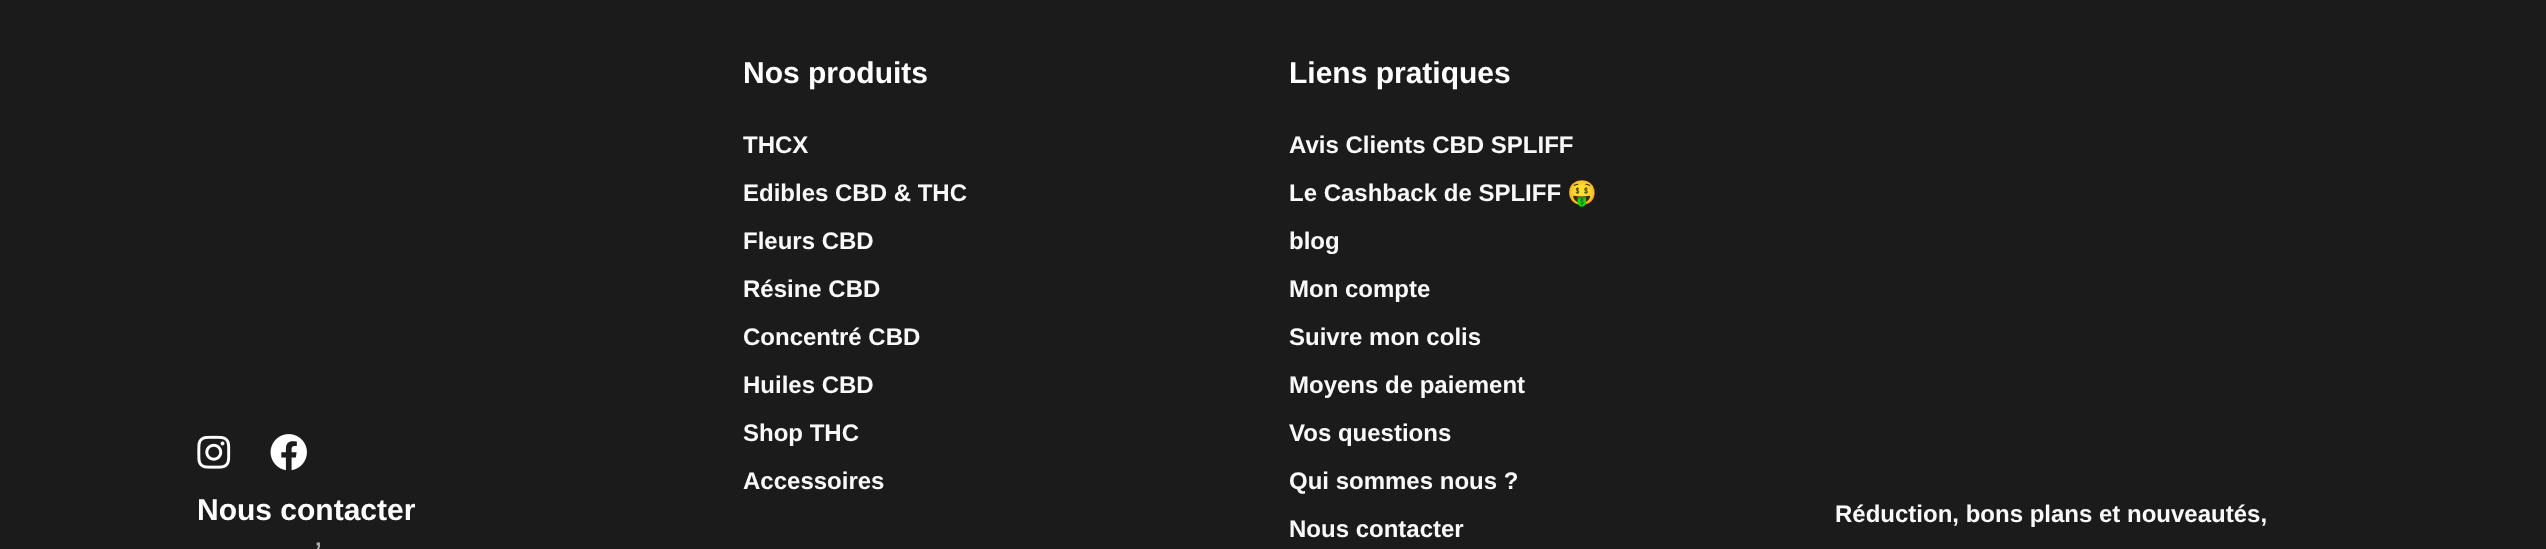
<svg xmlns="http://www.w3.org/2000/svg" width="2546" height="549">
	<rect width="100%" height="100%" fill="#1B1B1B" />
	<image x="197" y="435" width="34" height="34" href="assets/img1.png" />
	<image x="270" y="434" width="37" height="37" href="assets/img2.png" />
	<text x="197" y="520" font-family="Liberation Sans" font-size="30" font-weight="700" fill="#FFFFFF">Nous contacter</text>
	<text x="315" y="559" font-family="Liberation Sans" font-size="24" font-weight="700" fill="#AFAFAF">’</text>
	<text x="743" y="83" font-family="Liberation Sans" font-size="30" font-weight="700" fill="#FFFFFF">Nos produits</text>
	<g font-family="Liberation Sans" font-size="24" font-weight="700" fill="#F9F9F9">
		<text x="743" y="153">THCX</text>
		<text x="743" y="201">Edibles CBD &amp; THC</text>
		<text x="743" y="249">Fleurs CBD</text>
		<text x="743" y="297">Résine CBD</text>
		<text x="743" y="345">Concentré CBD</text>
		<text x="743" y="393">Huiles CBD</text>
		<text x="743" y="441">Shop THC</text>
		<text x="743" y="489">Accessoires</text>
	</g>
	<text x="1289" y="83" font-family="Liberation Sans" font-size="30" font-weight="700" fill="#FFFFFF">Liens pratiques</text>
	<g font-family="Liberation Sans" font-size="24" font-weight="700" fill="#F9F9F9">
		<text x="1289" y="153">Avis Clients CBD SPLIFF</text>
		<text x="1289" y="201">Le Cashback de SPLIFF</text>
	</g>
	<text x="1567" y="201" font-family="Noto Color Emoji" font-size="24" font-weight="700" fill="#F9F9F9">🤑</text>
	<g font-family="Liberation Sans" font-size="24" font-weight="700" fill="#F9F9F9">
		<text x="1289" y="249">blog</text>
		<text x="1289" y="297">Mon compte</text>
		<text x="1289" y="345">Suivre mon colis</text>
		<text x="1289" y="393">Moyens de paiement</text>
		<text x="1289" y="441">Vos questions</text>
		<text x="1289" y="489">Qui sommes nous ?</text>
		<text x="1289" y="537">Nous contacter</text>
		<text x="1835" y="522">Réduction, bons plans et nouveautés,</text>
	</g>
</svg>
